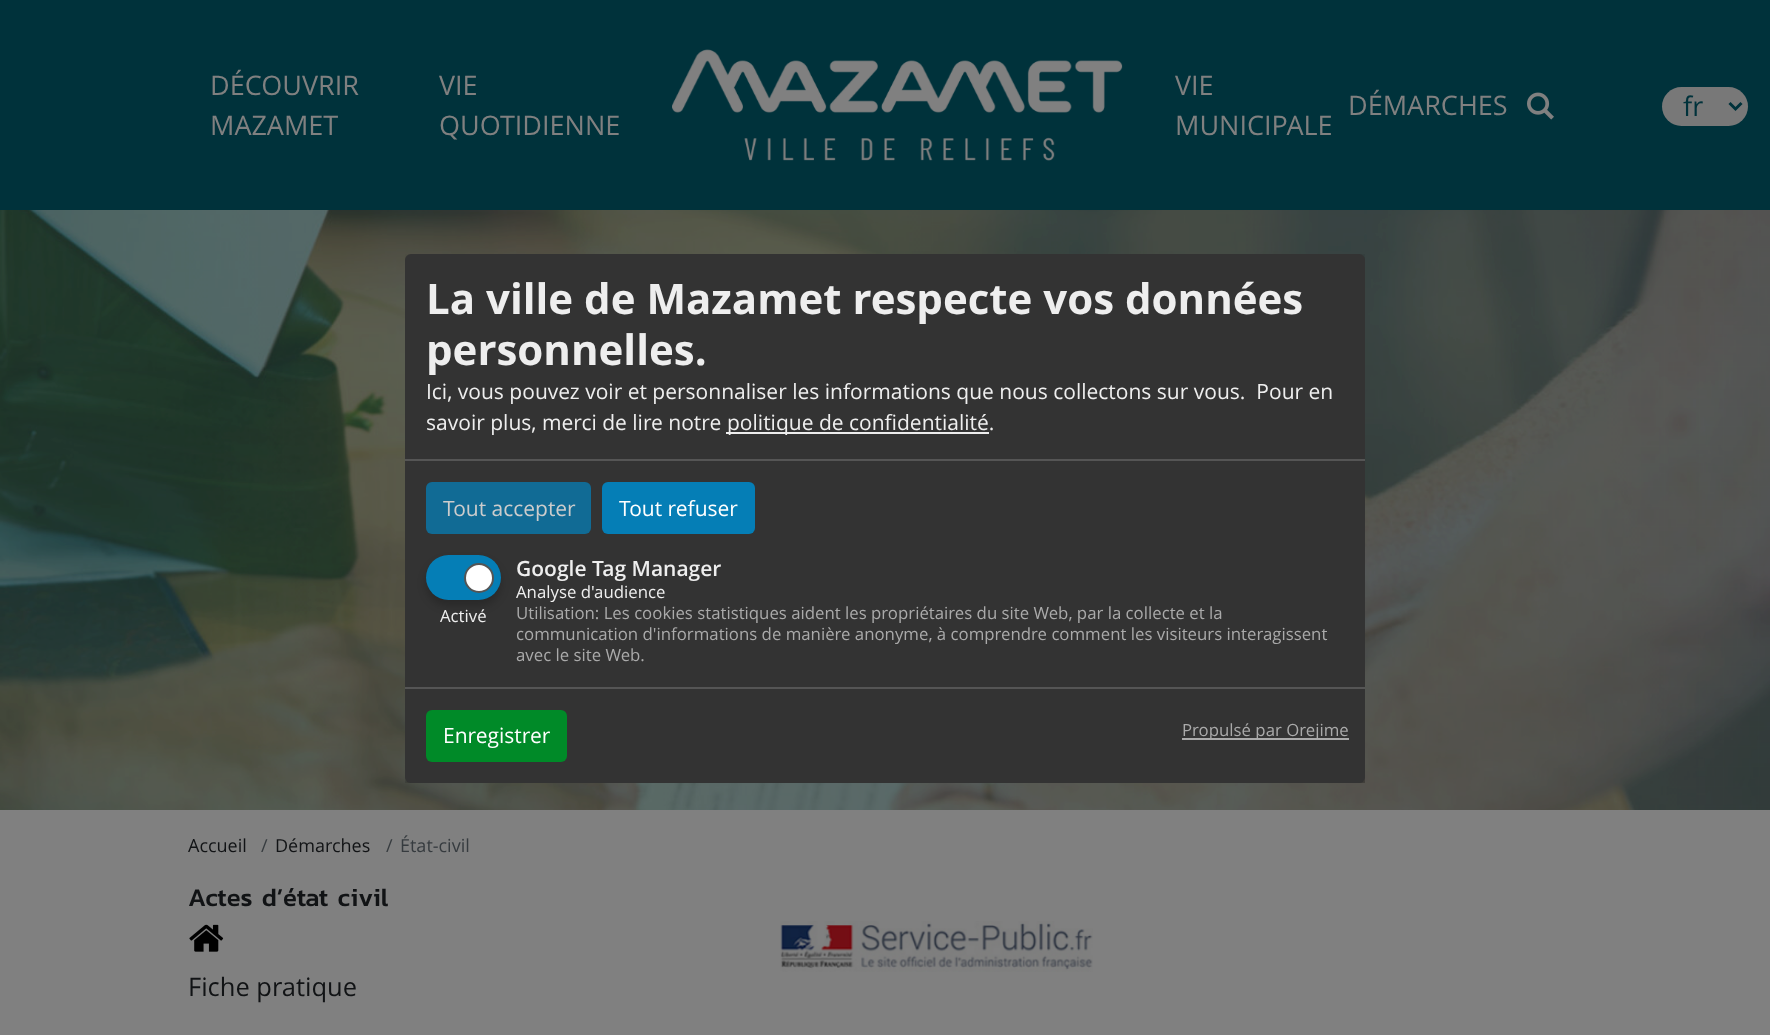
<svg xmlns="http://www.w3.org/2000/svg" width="1770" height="1035">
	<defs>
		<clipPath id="clip1"><rect x="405" y="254" width="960" height="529" /></clipPath>
	</defs>
	<rect width="100%" height="100%" fill="#808080" />
	<rect x="0" y="0" width="1770" height="210" fill="#00323B" />
	<g font-family="Open Sans" font-size="27" fill="#808080">
		<text x="210" y="95">DÉCOUVRIR</text>
		<text x="210" y="135">MAZAMET</text>
		<text x="439" y="95">VIE</text>
		<text x="439" y="135">QUOTIDIENNE</text>
	</g>
	<image x="672" y="49" width="451" height="112" href="assets/img1.png" />
	<g font-family="Open Sans" font-size="27" fill="#808080">
		<text x="1175" y="95">VIE</text>
		<text x="1175" y="135">MUNICIPALE</text>
		<text x="1348" y="115">DÉMARCHES</text>
	</g>
	<image x="1527" y="92" width="27" height="28" href="assets/img2.png" />
	<rect x="1662" y="87" width="86" height="39" rx="19.5" fill="#787878" />
	<path d="M1729.5 103L1735.5 109L1741.5 103" fill="none" stroke="#00323B" stroke-width="3" />
	<text x="1683" y="116" font-family="Open Sans" font-size="27" fill="#00323B">fr</text>
	<image x="0" y="210" width="1770" height="600" href="assets/img3.png" />
	<image x="0" y="210" width="1770" height="600" href="assets/img4.png" />
	<g clip-path="url(#clip1)">
		<rect x="413" y="261" width="960" height="530" rx="6" fill="#000000" fill-opacity="0.19" filter="blur(7.5px)" />
		<rect x="405" y="260" width="960" height="529" rx="6" fill="#000000" fill-opacity="0.2" filter="blur(4.5px)" />
	</g>
	<rect x="405" y="254" width="960" height="529" rx="6" fill="#333333" />
	<rect x="405" y="459" width="960" height="2" fill="#555555" />
	<g font-family="Open Sans" font-size="42" font-weight="700" fill="#EEEEEE">
		<text x="426" y="314">La ville de Mazamet respecte vos données</text>
		<text x="426" y="365">personnelles.</text>
	</g>
	<g font-family="Open Sans" font-size="21" fill="#EEEEEE">
		<text x="426" y="399" xml:space="preserve">Ici, vous pouvez voir et personnaliser les informations que nous collectons sur vous.  Pour en</text>
		<text x="426" y="430">savoir plus, merci de lire notre</text>
	</g>
	<rect x="726" y="432" width="263" height="2" fill="#EEEEEE" />
	<text x="727" y="430" font-family="Open Sans" font-size="21" fill="#EEEEEE">politique de confidentialité.</text>
	<rect x="426" y="482" width="165" height="52" rx="6" fill="#116B95" />
	<text x="443" y="516" font-family="Open Sans" font-size="21" fill="#CCCCCC">Tout accepter</text>
	<rect x="602" y="482" width="153" height="52" rx="6" fill="#057EB6" />
	<text x="619" y="516" font-family="Open Sans" font-size="21" fill="#FFFFFF">Tout refuser</text>
	<text x="516" y="576" font-family="Open Sans" font-size="21" font-weight="600" fill="#EEEEEE">Google Tag Manager</text>
	<rect x="426" y="561" width="75" height="45" rx="22.5" fill="#000000" fill-opacity="0.2" filter="blur(4.5px)" />
	<rect x="426" y="555" width="75" height="45" rx="22.5" fill="#057EB6" />
	<circle cx="479" cy="578" r="14" fill="#FFFFFF" stroke="#555555" stroke-width="2" />
	<g font-family="Open Sans" font-size="16.8" fill="#EEEEEE">
		<text x="440" y="622">Activé</text>
		<text x="516" y="598">Analyse d'audience</text>
	</g>
	<g font-family="Open Sans" font-size="16.8" fill="#AAAAAA">
		<text x="516" y="619">Utilisation: Les cookies statistiques aident les propriétaires du site Web, par la collecte et la</text>
		<text x="516" y="640">communication d'informations de manière anonyme, à comprendre comment les visiteurs interagissent</text>
		<text x="516" y="661">avec le site Web.</text>
	</g>
	<rect x="405" y="687" width="960" height="2" fill="#555555" />
	<rect x="426" y="710" width="141" height="52" rx="6" fill="#008A28" />
	<text x="443" y="743" font-family="Open Sans" font-size="21" fill="#FFFFFF">Enregistrer</text>
	<rect x="1182" y="738" width="167" height="2" fill="#AAAAAA" />
	<text x="1182" y="736" font-family="Open Sans" font-size="16.8" fill="#AAAAAA">Propulsé par Orejime</text>
	<text x="188" y="852" font-family="Open Sans" font-size="18" fill="#111315">Accueil</text>
	<text x="261" y="852" font-family="Open Sans" font-size="18" fill="#363B3F">/</text>
	<text x="275" y="852" font-family="Open Sans" font-size="18" fill="#111315">Démarches</text>
	<g font-family="Open Sans" font-size="18" fill="#363B3F">
		<text x="386" y="852">/</text>
		<text x="400" y="852">État-civil</text>
	</g>
	<text x="188" y="906" font-family="Kanit" font-size="25.5" font-weight="500" fill="#111315">Actes d’état civil</text>
	<image x="189" y="924" width="35" height="28" href="assets/img5.png" />
	<image x="780" y="921" width="313" height="51" href="assets/img6.png" />
	<text x="188" y="996" font-family="Open Sans" font-size="25.5" fill="#111315">Fiche pratique</text>
</svg>
